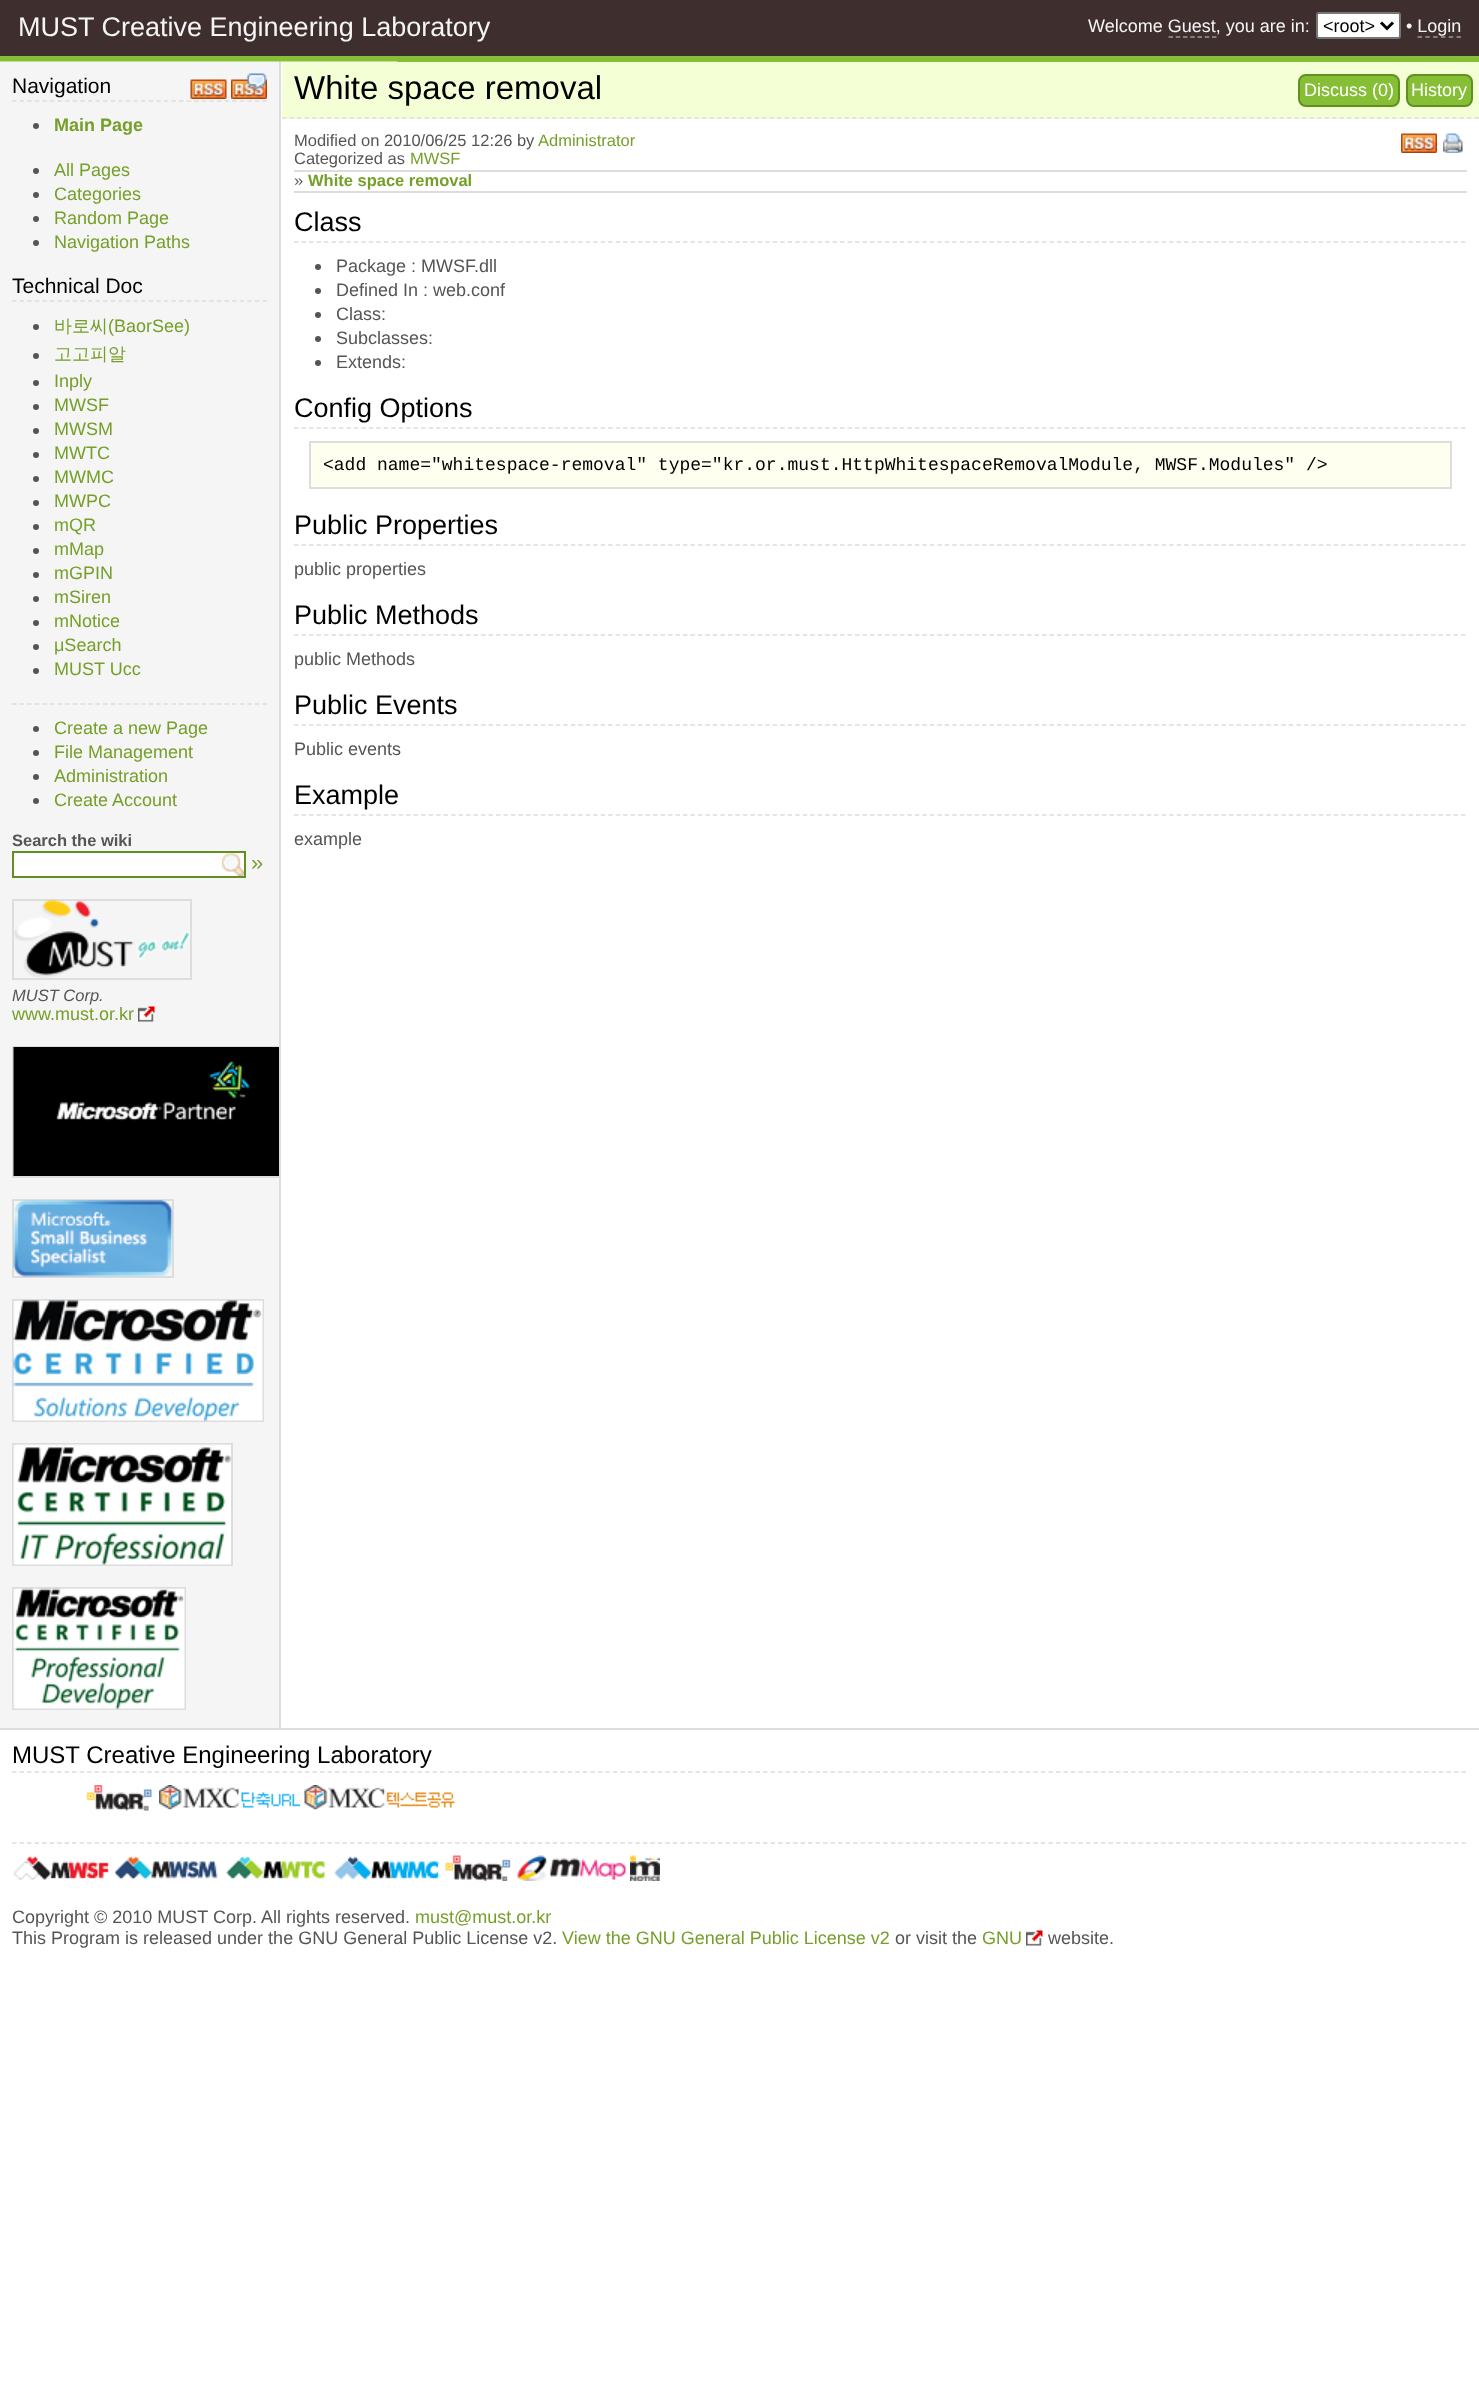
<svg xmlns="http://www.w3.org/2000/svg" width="1479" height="2383">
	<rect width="100%" height="100%" fill="#FFFFFF" />
	<rect x="0" y="0" width="1479" height="56" fill="#3E2E2E" />
	<rect x="0" y="56" width="1479" height="6" fill="#86BE36" />
	<text x="18" y="36" font-family="Liberation Sans" font-size="27" fill="#F5F5F5">MUST Creative Engineering Laboratory</text>
	<text x="1088" y="32" font-family="Liberation Sans" font-size="18" fill="#F5F5F5">Welcome Guest, you are in:</text>
	<rect x="1317" y="13" width="83" height="25" rx="2" fill="#FFFFFF" stroke="#767676" stroke-width="2" />
	<path d="M1381 22.5L1387 28.5L1393 22.5" fill="none" stroke="#000000" stroke-width="3" />
	<text x="1323" y="32" font-family="Liberation Sans" font-size="18" fill="#000000">&lt;root&gt;</text>
	<text x="1406" y="32" font-family="Liberation Sans" font-size="18" fill="#F5F5F5">• Login</text>
	<path d="M1168.5 37H1216.5" fill="none" stroke="#999999" stroke-width="1.5" stroke-dasharray="4.5 2.75" />
	<path d="M1417.5 37H1461" fill="none" stroke="#999999" stroke-width="1.5" stroke-dasharray="4.5 3.3" />
	<image x="0" y="61" width="398" height="827" href="assets/img11.png" />
	<rect x="0" y="62" width="279" height="1666" fill="#F5F5F5" />
	<rect x="279" y="62" width="2" height="1666" fill="#DDDDDD" />
	<path d="M12 101H267" fill="none" stroke="#DDDDDD" stroke-width="1.5" stroke-dasharray="4.5 3.09" />
	<text x="12" y="93" font-family="Liberation Sans" font-size="21" fill="#000000">Navigation</text>
	<image x="190" y="79" width="37" height="20" href="assets/img1.png" />
	<image x="231" y="73" width="36" height="26" href="assets/img2.png" />
	<circle cx="36" cy="126" r="3" fill="#555555" />
	<text x="54" y="131" font-family="Liberation Sans" font-size="18" font-weight="700" fill="#769F29">Main Page</text>
	<circle cx="36" cy="171" r="3" fill="#555555" />
	<text x="54" y="176" font-family="Liberation Sans" font-size="18" fill="#769F29">All Pages</text>
	<circle cx="36" cy="195" r="3" fill="#555555" />
	<text x="54" y="200" font-family="Liberation Sans" font-size="18" fill="#769F29">Categories</text>
	<circle cx="36" cy="219" r="3" fill="#555555" />
	<text x="54" y="224" font-family="Liberation Sans" font-size="18" fill="#769F29">Random Page</text>
	<circle cx="36" cy="243" r="3" fill="#555555" />
	<text x="54" y="248" font-family="Liberation Sans" font-size="18" fill="#769F29">Navigation Paths</text>
	<path d="M12 301H267" fill="none" stroke="#DDDDDD" stroke-width="1.5" stroke-dasharray="4.5 3.09" />
	<text x="12" y="293" font-family="Liberation Sans" font-size="21" fill="#000000">Technical Doc</text>
	<circle cx="36" cy="327" r="3" fill="#555555" />
	<text x="54" y="332" font-family="WenQuanYi Zen Hei" font-size="18" font-weight="500" fill="#769F29">바로씨</text>
	<text x="108" y="332" font-family="Liberation Sans" font-size="18" fill="#769F29">(BaorSee)</text>
	<circle cx="36" cy="356" r="3" fill="#555555" />
	<text x="54" y="360" font-family="WenQuanYi Zen Hei" font-size="18" font-weight="500" fill="#769F29">고고피알</text>
	<circle cx="36" cy="383" r="3" fill="#555555" />
	<text x="54" y="387" font-family="Liberation Sans" font-size="18" fill="#769F29">Inply</text>
	<circle cx="36" cy="407" r="3" fill="#555555" />
	<text x="54" y="411" font-family="Liberation Sans" font-size="18" fill="#769F29">MWSF</text>
	<circle cx="36" cy="431" r="3" fill="#555555" />
	<text x="54" y="435" font-family="Liberation Sans" font-size="18" fill="#769F29">MWSM</text>
	<circle cx="36" cy="455" r="3" fill="#555555" />
	<text x="54" y="459" font-family="Liberation Sans" font-size="18" fill="#769F29">MWTC</text>
	<circle cx="36" cy="479" r="3" fill="#555555" />
	<text x="54" y="483" font-family="Liberation Sans" font-size="18" fill="#769F29">MWMC</text>
	<circle cx="36" cy="503" r="3" fill="#555555" />
	<text x="54" y="507" font-family="Liberation Sans" font-size="18" fill="#769F29">MWPC</text>
	<circle cx="36" cy="527" r="3" fill="#555555" />
	<text x="54" y="531" font-family="Liberation Sans" font-size="18" fill="#769F29">mQR</text>
	<circle cx="36" cy="551" r="3" fill="#555555" />
	<text x="54" y="555" font-family="Liberation Sans" font-size="18" fill="#769F29">mMap</text>
	<circle cx="36" cy="575" r="3" fill="#555555" />
	<text x="54" y="579" font-family="Liberation Sans" font-size="18" fill="#769F29">mGPIN</text>
	<circle cx="36" cy="599" r="3" fill="#555555" />
	<text x="54" y="603" font-family="Liberation Sans" font-size="18" fill="#769F29">mSiren</text>
	<circle cx="36" cy="623" r="3" fill="#555555" />
	<text x="54" y="627" font-family="Liberation Sans" font-size="18" fill="#769F29">mNotice</text>
	<circle cx="36" cy="647" r="3" fill="#555555" />
	<text x="54" y="651" font-family="Liberation Sans" font-size="18" fill="#769F29">μSearch</text>
	<circle cx="36" cy="671" r="3" fill="#555555" />
	<text x="54" y="675" font-family="Liberation Sans" font-size="18" fill="#769F29">MUST Ucc</text>
	<path d="M12 704H267" fill="none" stroke="#DDDDDD" stroke-width="1.5" stroke-dasharray="4.5 3.09" />
	<circle cx="36" cy="729" r="3" fill="#555555" />
	<text x="54" y="734" font-family="Liberation Sans" font-size="18" fill="#769F29">Create a new Page</text>
	<circle cx="36" cy="753" r="3" fill="#555555" />
	<text x="54" y="758" font-family="Liberation Sans" font-size="18" fill="#769F29">File Management</text>
	<circle cx="36" cy="777" r="3" fill="#555555" />
	<text x="54" y="782" font-family="Liberation Sans" font-size="18" fill="#769F29">Administration</text>
	<circle cx="36" cy="801" r="3" fill="#555555" />
	<text x="54" y="806" font-family="Liberation Sans" font-size="18" fill="#769F29">Create Account</text>
	<text x="12" y="846" font-family="Liberation Sans" font-size="16.5" font-weight="700" fill="#555555">Search the wiki</text>
	<rect x="14" y="853" width="230" height="23" fill="#FFFFFF" />
	<image x="222" y="853" width="22" height="23" href="assets/img3.png" />
	<rect x="13" y="852" width="232" height="25" fill="none" stroke="#609020" stroke-width="2" />
	<text x="251" y="870" font-family="Liberation Sans" font-size="22" fill="#769F29">»</text>
	<rect x="13" y="900" width="178" height="79" fill="none" stroke="#DDDDDD" stroke-width="2" />
	<image x="14" y="900" width="177" height="78" href="assets/img4.png" />
	<text x="12" y="1001" font-family="Liberation Sans" font-size="16.5" font-style="italic" fill="#555555">MUST Corp.</text>
	<text x="12" y="1020" font-family="Liberation Sans" font-size="18" fill="#769F29">www.must.or.kr</text>
	<image x="138" y="1006" width="17" height="16" href="assets/img5.png" />
	<rect x="13" y="1047" width="267" height="130" fill="none" stroke="#DDDDDD" stroke-width="2" />
	<image x="13" y="1047" width="266" height="129" href="assets/img6.png" />
	<rect x="13" y="1200" width="160" height="77" fill="none" stroke="#DDDDDD" stroke-width="2" />
	<image x="13" y="1200" width="160" height="77" href="assets/img7.png" />
	<rect x="13" y="1300" width="250" height="121" fill="none" stroke="#DDDDDD" stroke-width="2" />
	<image x="13" y="1300" width="250" height="121" href="assets/img8.png" />
	<rect x="13" y="1444" width="219" height="121" fill="none" stroke="#DDDDDD" stroke-width="2" />
	<image x="13" y="1444" width="218" height="121" href="assets/img9.png" />
	<rect x="13" y="1588" width="172" height="121" fill="none" stroke="#DDDDDD" stroke-width="2" />
	<image x="13" y="1588" width="172" height="121" href="assets/img10.png" />
	<rect x="282" y="62" width="1197" height="57" fill="#F4FFD6" />
	<path d="M282 118H1479" fill="none" stroke="#DDDDDD" stroke-width="1.5" stroke-dasharray="4.5 3" />
	<text x="294" y="99" font-family="Liberation Sans" font-size="33" fill="#000000">White space removal</text>
	<rect x="1299" y="75" width="100" height="31" rx="7" fill="#86BE36" stroke="#609020" stroke-width="2" />
	<text x="1304" y="96" font-family="Liberation Sans" font-size="18" fill="#FFFFFF">Discuss (0)</text>
	<rect x="1407" y="75" width="65" height="31" rx="7" fill="#86BE36" stroke="#609020" stroke-width="2" />
	<text x="1411" y="96" font-family="Liberation Sans" font-size="18" fill="#FFFFFF">History</text>
	<text x="294" y="146" font-family="Liberation Sans" font-size="16.5" fill="#555555">Modified on 2010/06/25 12:26 by</text>
	<text x="538" y="146" font-family="Liberation Sans" font-size="16.5" fill="#769F29">Administrator</text>
	<text x="294" y="164" font-family="Liberation Sans" font-size="16.5" fill="#555555">Categorized as</text>
	<text x="410" y="164" font-family="Liberation Sans" font-size="16.5" fill="#769F29">MWSF</text>
	<image x="1401" y="133" width="36" height="20" href="assets/img12.png" />
	<image x="1443" y="133" width="20" height="20" href="assets/img13.png" />
	<rect x="294" y="170" width="1173" height="2" fill="#DDDDDD" />
	<rect x="294" y="191" width="1173" height="2" fill="#DDDDDD" />
	<text x="294" y="186" font-family="Liberation Sans" font-size="16.5" fill="#555555">»</text>
	<text x="308" y="186" font-family="Liberation Sans" font-size="16.5" font-weight="700" fill="#769F29">White space removal</text>
	<path d="M294 242H1467" fill="none" stroke="#DDDDDD" stroke-width="1.5" stroke-dasharray="4.5 2.98" />
	<text x="294" y="231" font-family="Liberation Sans" font-size="27" fill="#000000">Class</text>
	<circle cx="318" cy="267" r="3" fill="#555555" />
	<text x="336" y="272" font-family="Liberation Sans" font-size="18" fill="#555555">Package : MWSF.dll</text>
	<circle cx="318" cy="291" r="3" fill="#555555" />
	<text x="336" y="296" font-family="Liberation Sans" font-size="18" fill="#555555">Defined In : web.conf</text>
	<circle cx="318" cy="315" r="3" fill="#555555" />
	<text x="336" y="320" font-family="Liberation Sans" font-size="18" fill="#555555">Class:</text>
	<circle cx="318" cy="339" r="3" fill="#555555" />
	<text x="336" y="344" font-family="Liberation Sans" font-size="18" fill="#555555">Subclasses:</text>
	<circle cx="318" cy="363" r="3" fill="#555555" />
	<text x="336" y="368" font-family="Liberation Sans" font-size="18" fill="#555555">Extends:</text>
	<path d="M294 428H1467" fill="none" stroke="#DDDDDD" stroke-width="1.5" stroke-dasharray="4.5 2.98" />
	<text x="294" y="417" font-family="Liberation Sans" font-size="27" fill="#000000">Config Options</text>
	<rect x="310" y="442" width="1141" height="46" fill="#FFFFF0" stroke="#DDDDDD" stroke-width="2" />
	<text x="323" y="470" font-family="Liberation Mono" font-size="18" fill="#000000">&lt;add name="whitespace-removal" type="kr.or.must.HttpWhitespaceRemovalModule, MWSF.Modules" /&gt;</text>
	<path d="M294 545H1467" fill="none" stroke="#DDDDDD" stroke-width="1.5" stroke-dasharray="4.5 2.98" />
	<text x="294" y="534" font-family="Liberation Sans" font-size="27" fill="#000000">Public Properties</text>
	<text x="294" y="575" font-family="Liberation Sans" font-size="18" fill="#555555">public properties</text>
	<path d="M294 635H1467" fill="none" stroke="#DDDDDD" stroke-width="1.5" stroke-dasharray="4.5 2.98" />
	<text x="294" y="624" font-family="Liberation Sans" font-size="27" fill="#000000">Public Methods</text>
	<text x="294" y="665" font-family="Liberation Sans" font-size="18" fill="#555555">public Methods</text>
	<path d="M294 725H1467" fill="none" stroke="#DDDDDD" stroke-width="1.5" stroke-dasharray="4.5 2.98" />
	<text x="294" y="714" font-family="Liberation Sans" font-size="27" fill="#000000">Public Events</text>
	<text x="294" y="755" font-family="Liberation Sans" font-size="18" fill="#555555">Public events</text>
	<path d="M294 815H1467" fill="none" stroke="#DDDDDD" stroke-width="1.5" stroke-dasharray="4.5 2.98" />
	<text x="294" y="804" font-family="Liberation Sans" font-size="27" fill="#000000">Example</text>
	<text x="294" y="845" font-family="Liberation Sans" font-size="18" fill="#555555">example</text>
	<rect x="0" y="1728" width="1479" height="2" fill="#DDDDDD" />
	<path d="M12 1772H1467" fill="none" stroke="#DDDDDD" stroke-width="1.5" stroke-dasharray="4.5 3.01" />
	<text x="12" y="1763" font-family="Liberation Sans" font-size="24" fill="#000000">MUST Creative Engineering Laboratory</text>
	<image x="86" y="1785" width="66" height="26" href="assets/img14.png" />
	<image x="159" y="1785" width="141" height="25" href="assets/img15.png" />
	<image x="304" y="1785" width="151" height="25" href="assets/img16.png" />
	<path d="M12 1843H1467" fill="none" stroke="#DDDDDD" stroke-width="1.5" stroke-dasharray="4.5 3.01" />
	<image x="13" y="1856" width="96" height="24" href="assets/img17.png" />
	<image x="115" y="1856" width="103" height="24" href="assets/img18.png" />
	<image x="226" y="1856" width="100" height="24" href="assets/img19.png" />
	<image x="334" y="1856" width="105" height="24" href="assets/img20.png" />
	<image x="445" y="1855" width="66" height="26" href="assets/img21.png" />
	<image x="517" y="1855" width="109" height="26" href="assets/img22.png" />
	<image x="630" y="1855" width="30" height="26" href="assets/img23.png" />
	<text x="12" y="1923" font-family="Liberation Sans" font-size="18" fill="#555555">Copyright © 2010 MUST Corp. All rights reserved.</text>
	<text x="415" y="1923" font-family="Liberation Sans" font-size="18" fill="#769F29">must@must.or.kr</text>
	<text x="12" y="1944" font-family="Liberation Sans" font-size="18" fill="#555555">This Program is released under the GNU General Public License v2.</text>
	<text x="562" y="1944" font-family="Liberation Sans" font-size="18" fill="#769F29">View the GNU General Public License v2</text>
	<text x="895" y="1944" font-family="Liberation Sans" font-size="18" fill="#555555">or visit the</text>
	<text x="982" y="1944" font-family="Liberation Sans" font-size="18" fill="#769F29">GNU</text>
	<image x="1026" y="1930" width="17" height="16" href="assets/img24.png" />
	<text x="1048" y="1944" font-family="Liberation Sans" font-size="18" fill="#555555">website.</text>
</svg>
